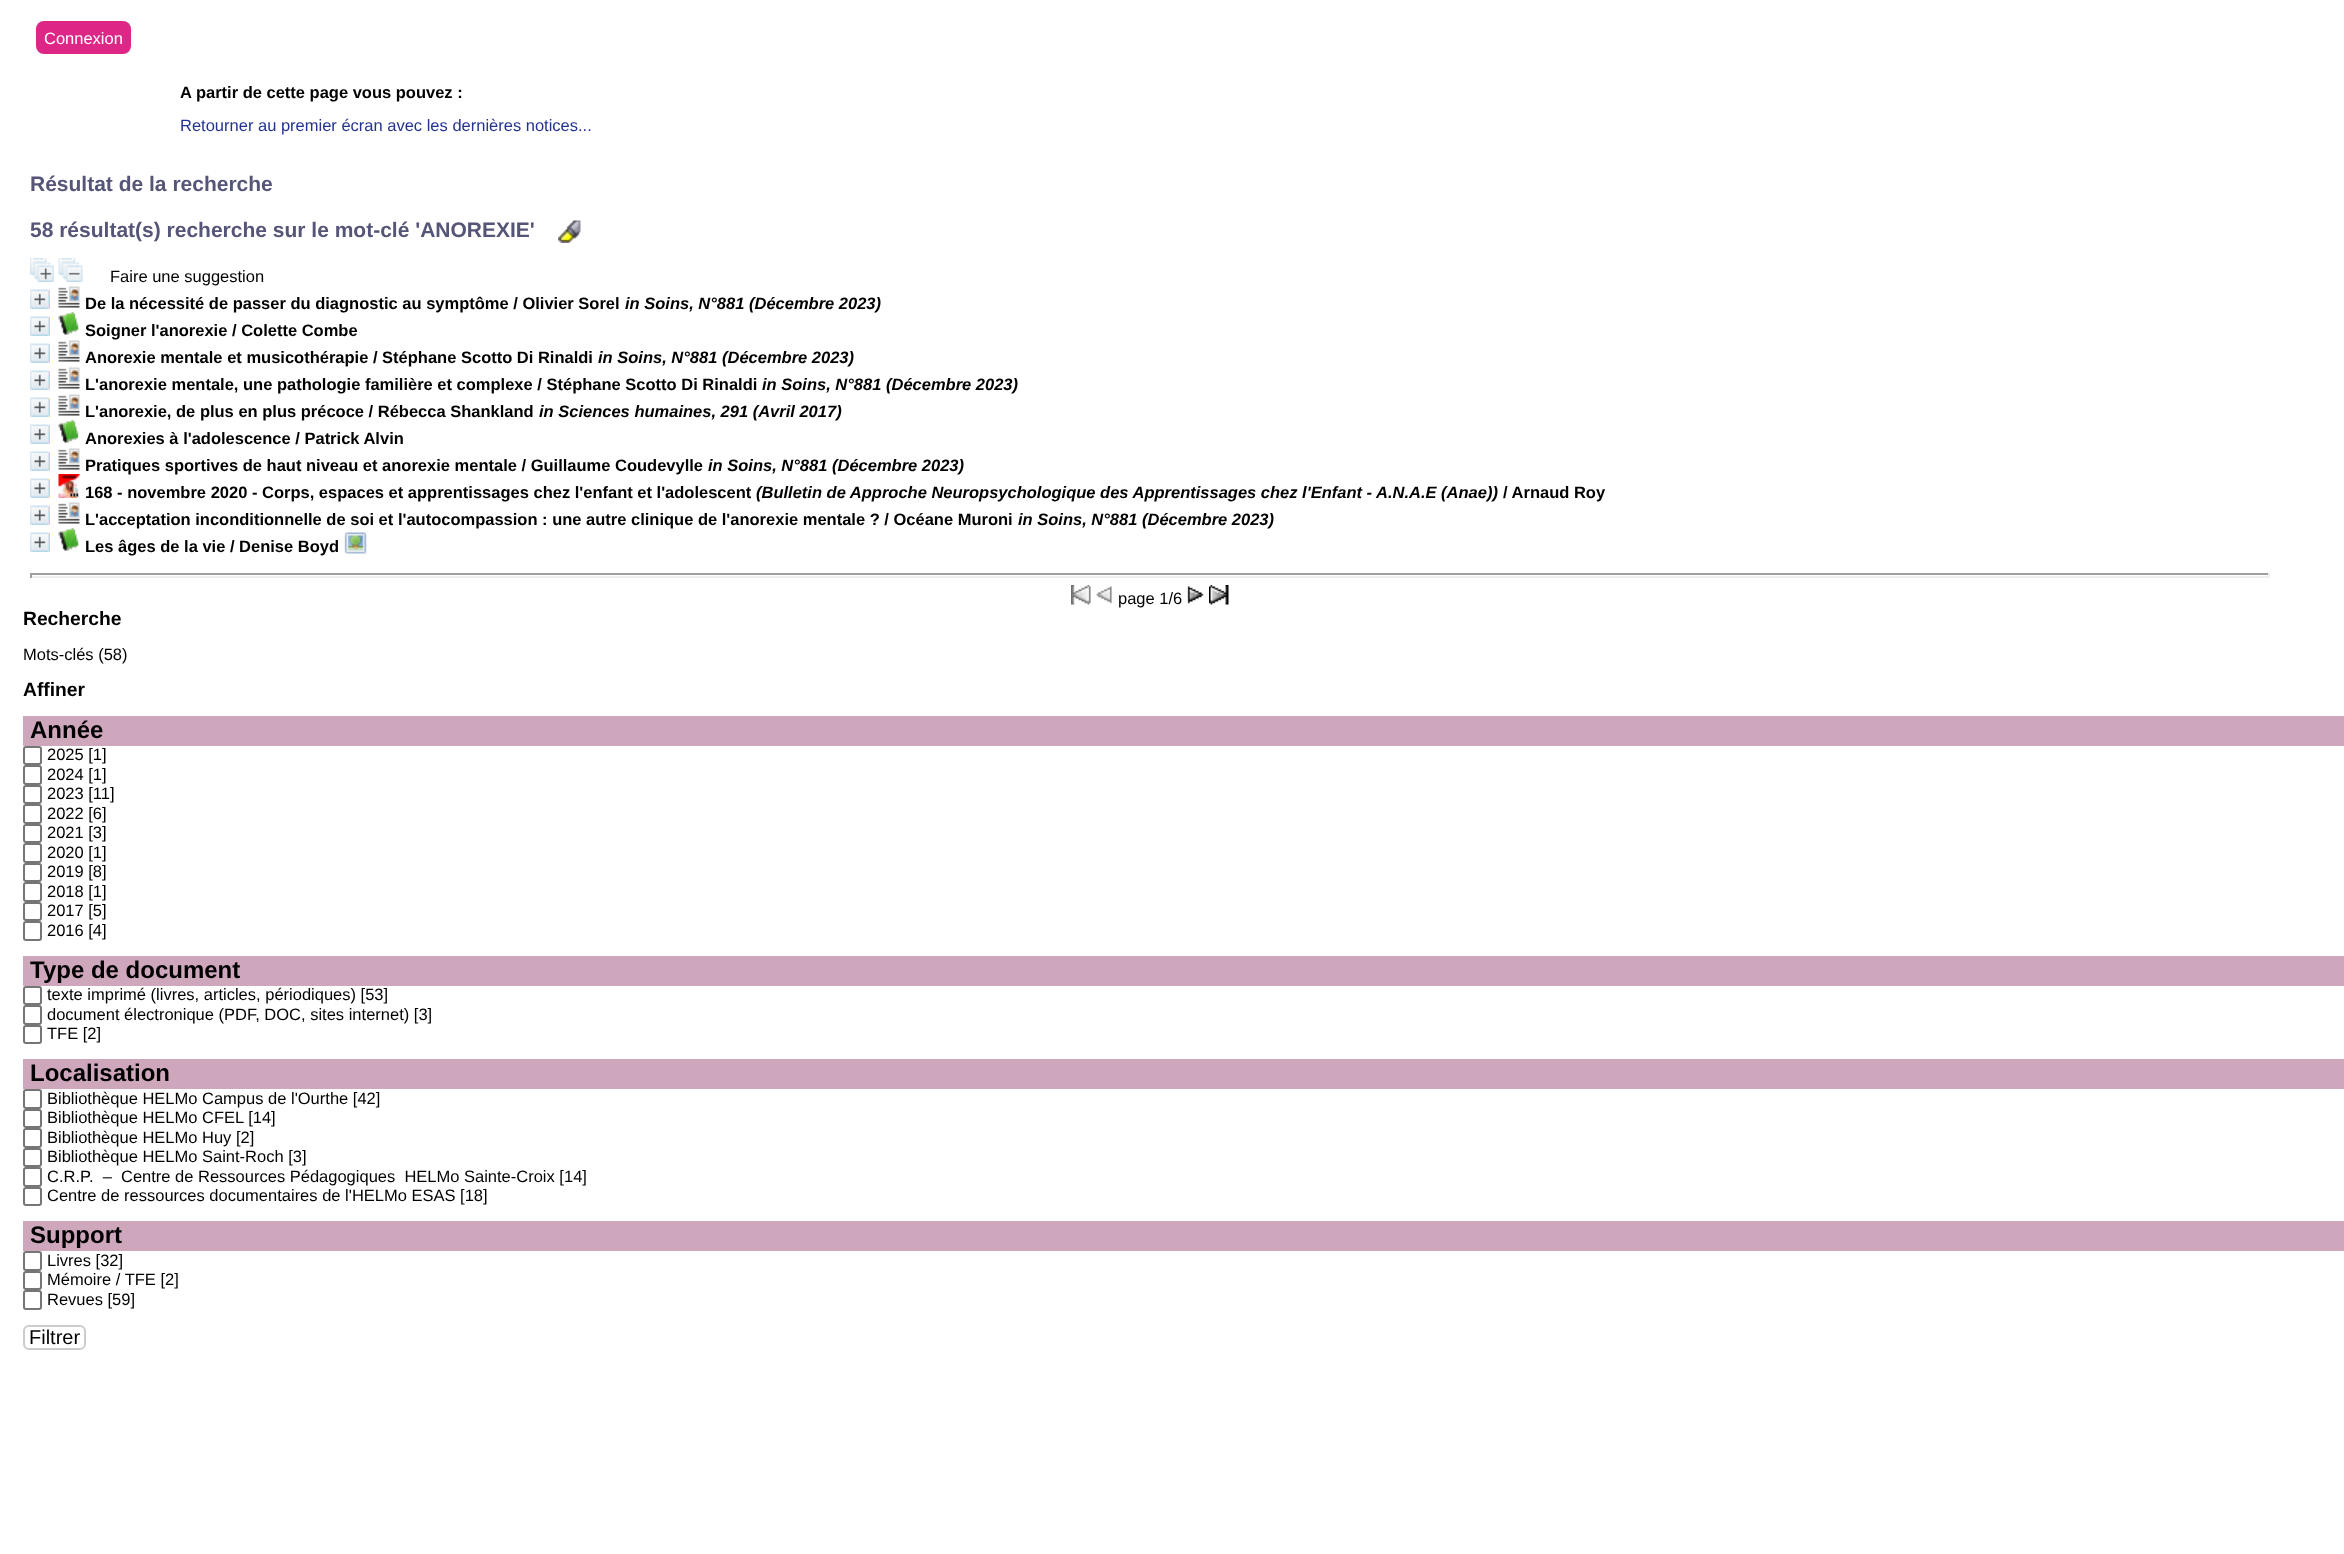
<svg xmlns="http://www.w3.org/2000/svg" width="2344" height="1554">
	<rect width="100%" height="100%" fill="#FFFFFF" />
	<rect x="36" y="21" width="95" height="33" rx="8" fill="#DE2687" />
	<text x="44" y="44" font-family="Liberation Sans" font-size="16.5" fill="#FFFFFF">Connexion</text>
	<text x="180" y="98" font-family="Liberation Sans" font-size="16.5" font-weight="700" fill="#000000">A partir de cette page vous pouvez :</text>
	<text x="180" y="131" font-family="Liberation Sans" font-size="16.5" fill="#23338F">Retourner au premier écran avec les dernières notices...</text>
	<g font-family="Liberation Sans" font-size="21" font-weight="700" fill="#555577">
		<text x="30" y="191">Résultat de la recherche</text>
		<text x="30" y="237">58 résultat(s) recherche sur le mot-clé 'ANOREXIE'</text>
	</g>
	<image x="558" y="220" width="23" height="23" href="assets/img1.png" />
	<image x="30" y="258" width="24" height="24" href="assets/img2.png" />
	<image x="58" y="258" width="25" height="24" href="assets/img3.png" />
	<text x="110" y="282" font-family="Liberation Sans" font-size="16.5" fill="#000000">Faire une suggestion</text>
	<rect x="49" y="290" width="1" height="19" fill="#FFCC00" />
	<image x="30" y="289" width="20" height="20" href="assets/img4.png" />
	<image x="58" y="286" width="22" height="22" href="assets/img5.png" />
	<text x="85" y="309" font-family="Liberation Sans" font-size="16.5" font-weight="700" fill="#000000">De la nécessité de passer du diagnostic au symptôme / Olivier Sorel</text>
	<text x="625" y="309" font-family="Liberation Sans" font-size="16.5" font-weight="700" font-style="italic" fill="#000000">in Soins, N°881 (Décembre 2023)</text>
	<rect x="49" y="317" width="1" height="19" fill="#FFCC00" />
	<image x="30" y="316" width="20" height="20" href="assets/img4.png" />
	<image x="58" y="312" width="21" height="23" href="assets/img6.png" />
	<text x="85" y="336" font-family="Liberation Sans" font-size="16.5" font-weight="700" fill="#000000">Soigner l'anorexie / Colette Combe</text>
	<rect x="49" y="344" width="1" height="19" fill="#FFCC00" />
	<image x="30" y="343" width="20" height="20" href="assets/img4.png" />
	<image x="58" y="340" width="22" height="22" href="assets/img5.png" />
	<text x="85" y="363" font-family="Liberation Sans" font-size="16.5" font-weight="700" fill="#000000">Anorexie mentale et musicothérapie / Stéphane Scotto Di Rinaldi</text>
	<text x="598" y="363" font-family="Liberation Sans" font-size="16.5" font-weight="700" font-style="italic" fill="#000000">in Soins, N°881 (Décembre 2023)</text>
	<rect x="49" y="371" width="1" height="19" fill="#FFCC00" />
	<image x="30" y="370" width="20" height="20" href="assets/img4.png" />
	<image x="58" y="367" width="22" height="22" href="assets/img5.png" />
	<text x="85" y="390" font-family="Liberation Sans" font-size="16.5" font-weight="700" fill="#000000">L'anorexie mentale, une pathologie familière et complexe / Stéphane Scotto Di Rinaldi</text>
	<text x="762" y="390" font-family="Liberation Sans" font-size="16.5" font-weight="700" font-style="italic" fill="#000000">in Soins, N°881 (Décembre 2023)</text>
	<rect x="49" y="398" width="1" height="19" fill="#FFCC00" />
	<image x="30" y="397" width="20" height="20" href="assets/img4.png" />
	<image x="58" y="394" width="22" height="22" href="assets/img5.png" />
	<text x="85" y="417" font-family="Liberation Sans" font-size="16.5" font-weight="700" fill="#000000">L'anorexie, de plus en plus précoce / Rébecca Shankland</text>
	<text x="539" y="417" font-family="Liberation Sans" font-size="16.5" font-weight="700" font-style="italic" fill="#000000">in Sciences humaines, 291 (Avril 2017)</text>
	<rect x="49" y="425" width="1" height="19" fill="#FFCC00" />
	<image x="30" y="424" width="20" height="20" href="assets/img4.png" />
	<image x="58" y="420" width="21" height="23" href="assets/img6.png" />
	<text x="85" y="444" font-family="Liberation Sans" font-size="16.5" font-weight="700" fill="#000000">Anorexies à l'adolescence / Patrick Alvin</text>
	<rect x="49" y="452" width="1" height="19" fill="#FFCC00" />
	<image x="30" y="451" width="20" height="20" href="assets/img4.png" />
	<image x="58" y="448" width="22" height="22" href="assets/img5.png" />
	<text x="85" y="471" font-family="Liberation Sans" font-size="16.5" font-weight="700" fill="#000000">Pratiques sportives de haut niveau et anorexie mentale / Guillaume Coudevylle</text>
	<text x="708" y="471" font-family="Liberation Sans" font-size="16.5" font-weight="700" font-style="italic" fill="#000000">in Soins, N°881 (Décembre 2023)</text>
	<rect x="49" y="479" width="1" height="19" fill="#FFCC00" />
	<image x="30" y="478" width="20" height="20" href="assets/img4.png" />
	<image x="58" y="474" width="22" height="24" href="assets/img7.png" />
	<text x="85" y="498" font-family="Liberation Sans" font-size="16.5" font-weight="700" fill="#000000">168 - novembre 2020 - Corps, espaces et apprentissages chez l'enfant et l'adolescent</text>
	<text x="756" y="498" font-family="Liberation Sans" font-size="16.5" font-weight="700" font-style="italic" fill="#000000">(Bulletin de Approche Neuropsychologique des Apprentissages chez l'Enfant - A.N.A.E (Anae))</text>
	<text x="1503" y="498" font-family="Liberation Sans" font-size="16.5" font-weight="700" fill="#000000">/ Arnaud Roy</text>
	<rect x="49" y="506" width="1" height="19" fill="#FFCC00" />
	<image x="30" y="505" width="20" height="20" href="assets/img4.png" />
	<image x="58" y="502" width="22" height="22" href="assets/img5.png" />
	<text x="85" y="525" font-family="Liberation Sans" font-size="16.5" font-weight="700" fill="#000000">L'acceptation inconditionnelle de soi et l'autocompassion : une autre clinique de l'anorexie mentale ? / Océane Muroni</text>
	<text x="1018" y="525" font-family="Liberation Sans" font-size="16.5" font-weight="700" font-style="italic" fill="#000000">in Soins, N°881 (Décembre 2023)</text>
	<rect x="49" y="533" width="1" height="19" fill="#FFCC00" />
	<image x="30" y="532" width="20" height="20" href="assets/img4.png" />
	<image x="58" y="528" width="21" height="23" href="assets/img6.png" />
	<text x="85" y="552" font-family="Liberation Sans" font-size="16.5" font-weight="700" fill="#000000">Les âges de la vie / Denise Boyd</text>
	<image x="344" y="532" width="23" height="22" href="assets/img8.png" />
	<rect x="30" y="573" width="2240" height="2" fill="#9F9F9F" />
	<rect x="2268" y="573" width="2" height="5" fill="#EEEEEE" />
	<rect x="30" y="576" width="2240" height="2" fill="#EEEEEE" />
	<rect x="30" y="573" width="2" height="5" fill="#9F9F9F" />
	<image x="1071" y="585" width="20" height="20" href="assets/img9.png" />
	<image x="1096" y="586" width="16" height="18" href="assets/img10.png" />
	<text x="1118" y="604" font-family="Liberation Sans" font-size="16.5" fill="#000000">page 1/6</text>
	<image x="1187" y="586" width="17" height="18" href="assets/img11.png" />
	<image x="1209" y="585" width="20" height="20" href="assets/img12.png" />
	<text x="23" y="625" font-family="Liberation Sans" font-size="19.25" font-weight="700" fill="#000000">Recherche</text>
	<text x="23" y="660" font-family="Liberation Sans" font-size="16.5" fill="#000000">Mots-clés (58)</text>
	<text x="23" y="696" font-family="Liberation Sans" font-size="19.25" font-weight="700" fill="#000000">Affiner</text>
	<rect x="23" y="716" width="2321" height="30" fill="#CEA7BC" />
	<text x="30" y="738" font-family="Liberation Sans" font-size="24" font-weight="700" fill="#000000">Année</text>
	<rect x="24" y="747" width="17" height="17" rx="2" fill="none" stroke="#767676" stroke-width="2" />
	<text x="47" y="760" font-family="Liberation Sans" font-size="16.5" fill="#000000">2025 [1]</text>
	<rect x="24" y="766" width="17" height="18" rx="2" fill="none" stroke="#767676" stroke-width="2" />
	<text x="47" y="780" font-family="Liberation Sans" font-size="16.5" fill="#000000">2024 [1]</text>
	<rect x="24" y="786" width="17" height="17" rx="2" fill="none" stroke="#767676" stroke-width="2" />
	<text x="47" y="799" font-family="Liberation Sans" font-size="16.5" fill="#000000">2023 [11]</text>
	<rect x="24" y="805" width="17" height="18" rx="2" fill="none" stroke="#767676" stroke-width="2" />
	<text x="47" y="819" font-family="Liberation Sans" font-size="16.5" fill="#000000">2022 [6]</text>
	<rect x="24" y="825" width="17" height="17" rx="2" fill="none" stroke="#767676" stroke-width="2" />
	<text x="47" y="838" font-family="Liberation Sans" font-size="16.5" fill="#000000">2021 [3]</text>
	<rect x="24" y="844" width="17" height="18" rx="2" fill="none" stroke="#767676" stroke-width="2" />
	<text x="47" y="858" font-family="Liberation Sans" font-size="16.5" fill="#000000">2020 [1]</text>
	<rect x="24" y="864" width="17" height="17" rx="2" fill="none" stroke="#767676" stroke-width="2" />
	<text x="47" y="877" font-family="Liberation Sans" font-size="16.5" fill="#000000">2019 [8]</text>
	<rect x="24" y="883" width="17" height="18" rx="2" fill="none" stroke="#767676" stroke-width="2" />
	<text x="47" y="897" font-family="Liberation Sans" font-size="16.5" fill="#000000">2018 [1]</text>
	<rect x="24" y="903" width="17" height="17" rx="2" fill="none" stroke="#767676" stroke-width="2" />
	<text x="47" y="916" font-family="Liberation Sans" font-size="16.5" fill="#000000">2017 [5]</text>
	<rect x="24" y="922" width="17" height="18" rx="2" fill="none" stroke="#767676" stroke-width="2" />
	<text x="47" y="936" font-family="Liberation Sans" font-size="16.5" fill="#000000">2016 [4]</text>
	<rect x="23" y="956" width="2321" height="30" fill="#CEA7BC" />
	<text x="30" y="978" font-family="Liberation Sans" font-size="24" font-weight="700" fill="#000000">Type de document</text>
	<rect x="24" y="987" width="17" height="17" rx="2" fill="none" stroke="#767676" stroke-width="2" />
	<text x="47" y="1000" font-family="Liberation Sans" font-size="16.5" fill="#000000">texte imprimé (livres, articles, périodiques) [53]</text>
	<rect x="24" y="1006" width="17" height="18" rx="2" fill="none" stroke="#767676" stroke-width="2" />
	<text x="47" y="1020" font-family="Liberation Sans" font-size="16.5" fill="#000000">document électronique (PDF, DOC, sites internet) [3]</text>
	<rect x="24" y="1026" width="17" height="17" rx="2" fill="none" stroke="#767676" stroke-width="2" />
	<text x="47" y="1039" font-family="Liberation Sans" font-size="16.5" fill="#000000">TFE [2]</text>
	<rect x="23" y="1059" width="2321" height="30" fill="#CEA7BC" />
	<text x="30" y="1081" font-family="Liberation Sans" font-size="24" font-weight="700" fill="#000000">Localisation</text>
	<rect x="24" y="1090" width="17" height="18" rx="2" fill="none" stroke="#767676" stroke-width="2" />
	<text x="47" y="1104" font-family="Liberation Sans" font-size="16.5" fill="#000000">Bibliothèque HELMo Campus de l'Ourthe [42]</text>
	<rect x="24" y="1110" width="17" height="17" rx="2" fill="none" stroke="#767676" stroke-width="2" />
	<text x="47" y="1123" font-family="Liberation Sans" font-size="16.5" fill="#000000">Bibliothèque HELMo CFEL [14]</text>
	<rect x="24" y="1129" width="17" height="18" rx="2" fill="none" stroke="#767676" stroke-width="2" />
	<text x="47" y="1143" font-family="Liberation Sans" font-size="16.5" fill="#000000">Bibliothèque HELMo Huy [2]</text>
	<rect x="24" y="1149" width="17" height="17" rx="2" fill="none" stroke="#767676" stroke-width="2" />
	<text x="47" y="1162" font-family="Liberation Sans" font-size="16.5" fill="#000000">Bibliothèque HELMo Saint-Roch [3]</text>
	<rect x="24" y="1168" width="17" height="18" rx="2" fill="none" stroke="#767676" stroke-width="2" />
	<text x="47" y="1182" font-family="Liberation Sans" font-size="16.5" fill="#000000" xml:space="preserve">C.R.P.  –  Centre de Ressources Pédagogiques  HELMo Sainte-Croix [14]</text>
	<rect x="24" y="1188" width="17" height="17" rx="2" fill="none" stroke="#767676" stroke-width="2" />
	<text x="47" y="1201" font-family="Liberation Sans" font-size="16.5" fill="#000000">Centre de ressources documentaires de l'HELMo ESAS [18]</text>
	<rect x="23" y="1221" width="2321" height="30" fill="#CEA7BC" />
	<text x="30" y="1243" font-family="Liberation Sans" font-size="24" font-weight="700" fill="#000000">Support</text>
	<rect x="24" y="1252" width="17" height="18" rx="2" fill="none" stroke="#767676" stroke-width="2" />
	<text x="47" y="1266" font-family="Liberation Sans" font-size="16.5" fill="#000000">Livres [32]</text>
	<rect x="24" y="1272" width="17" height="17" rx="2" fill="none" stroke="#767676" stroke-width="2" />
	<text x="47" y="1285" font-family="Liberation Sans" font-size="16.5" fill="#000000">Mémoire / TFE [2]</text>
	<rect x="24" y="1291" width="17" height="18" rx="2" fill="none" stroke="#767676" stroke-width="2" />
	<text x="47" y="1305" font-family="Liberation Sans" font-size="16.5" fill="#000000">Revues [59]</text>
	<rect x="24" y="1326" width="61" height="23" rx="5" fill="none" stroke="#CCCCCC" stroke-width="2" />
	<text x="29" y="1344" font-family="Liberation Sans" font-size="20" fill="#000000">Filtrer</text>
</svg>
